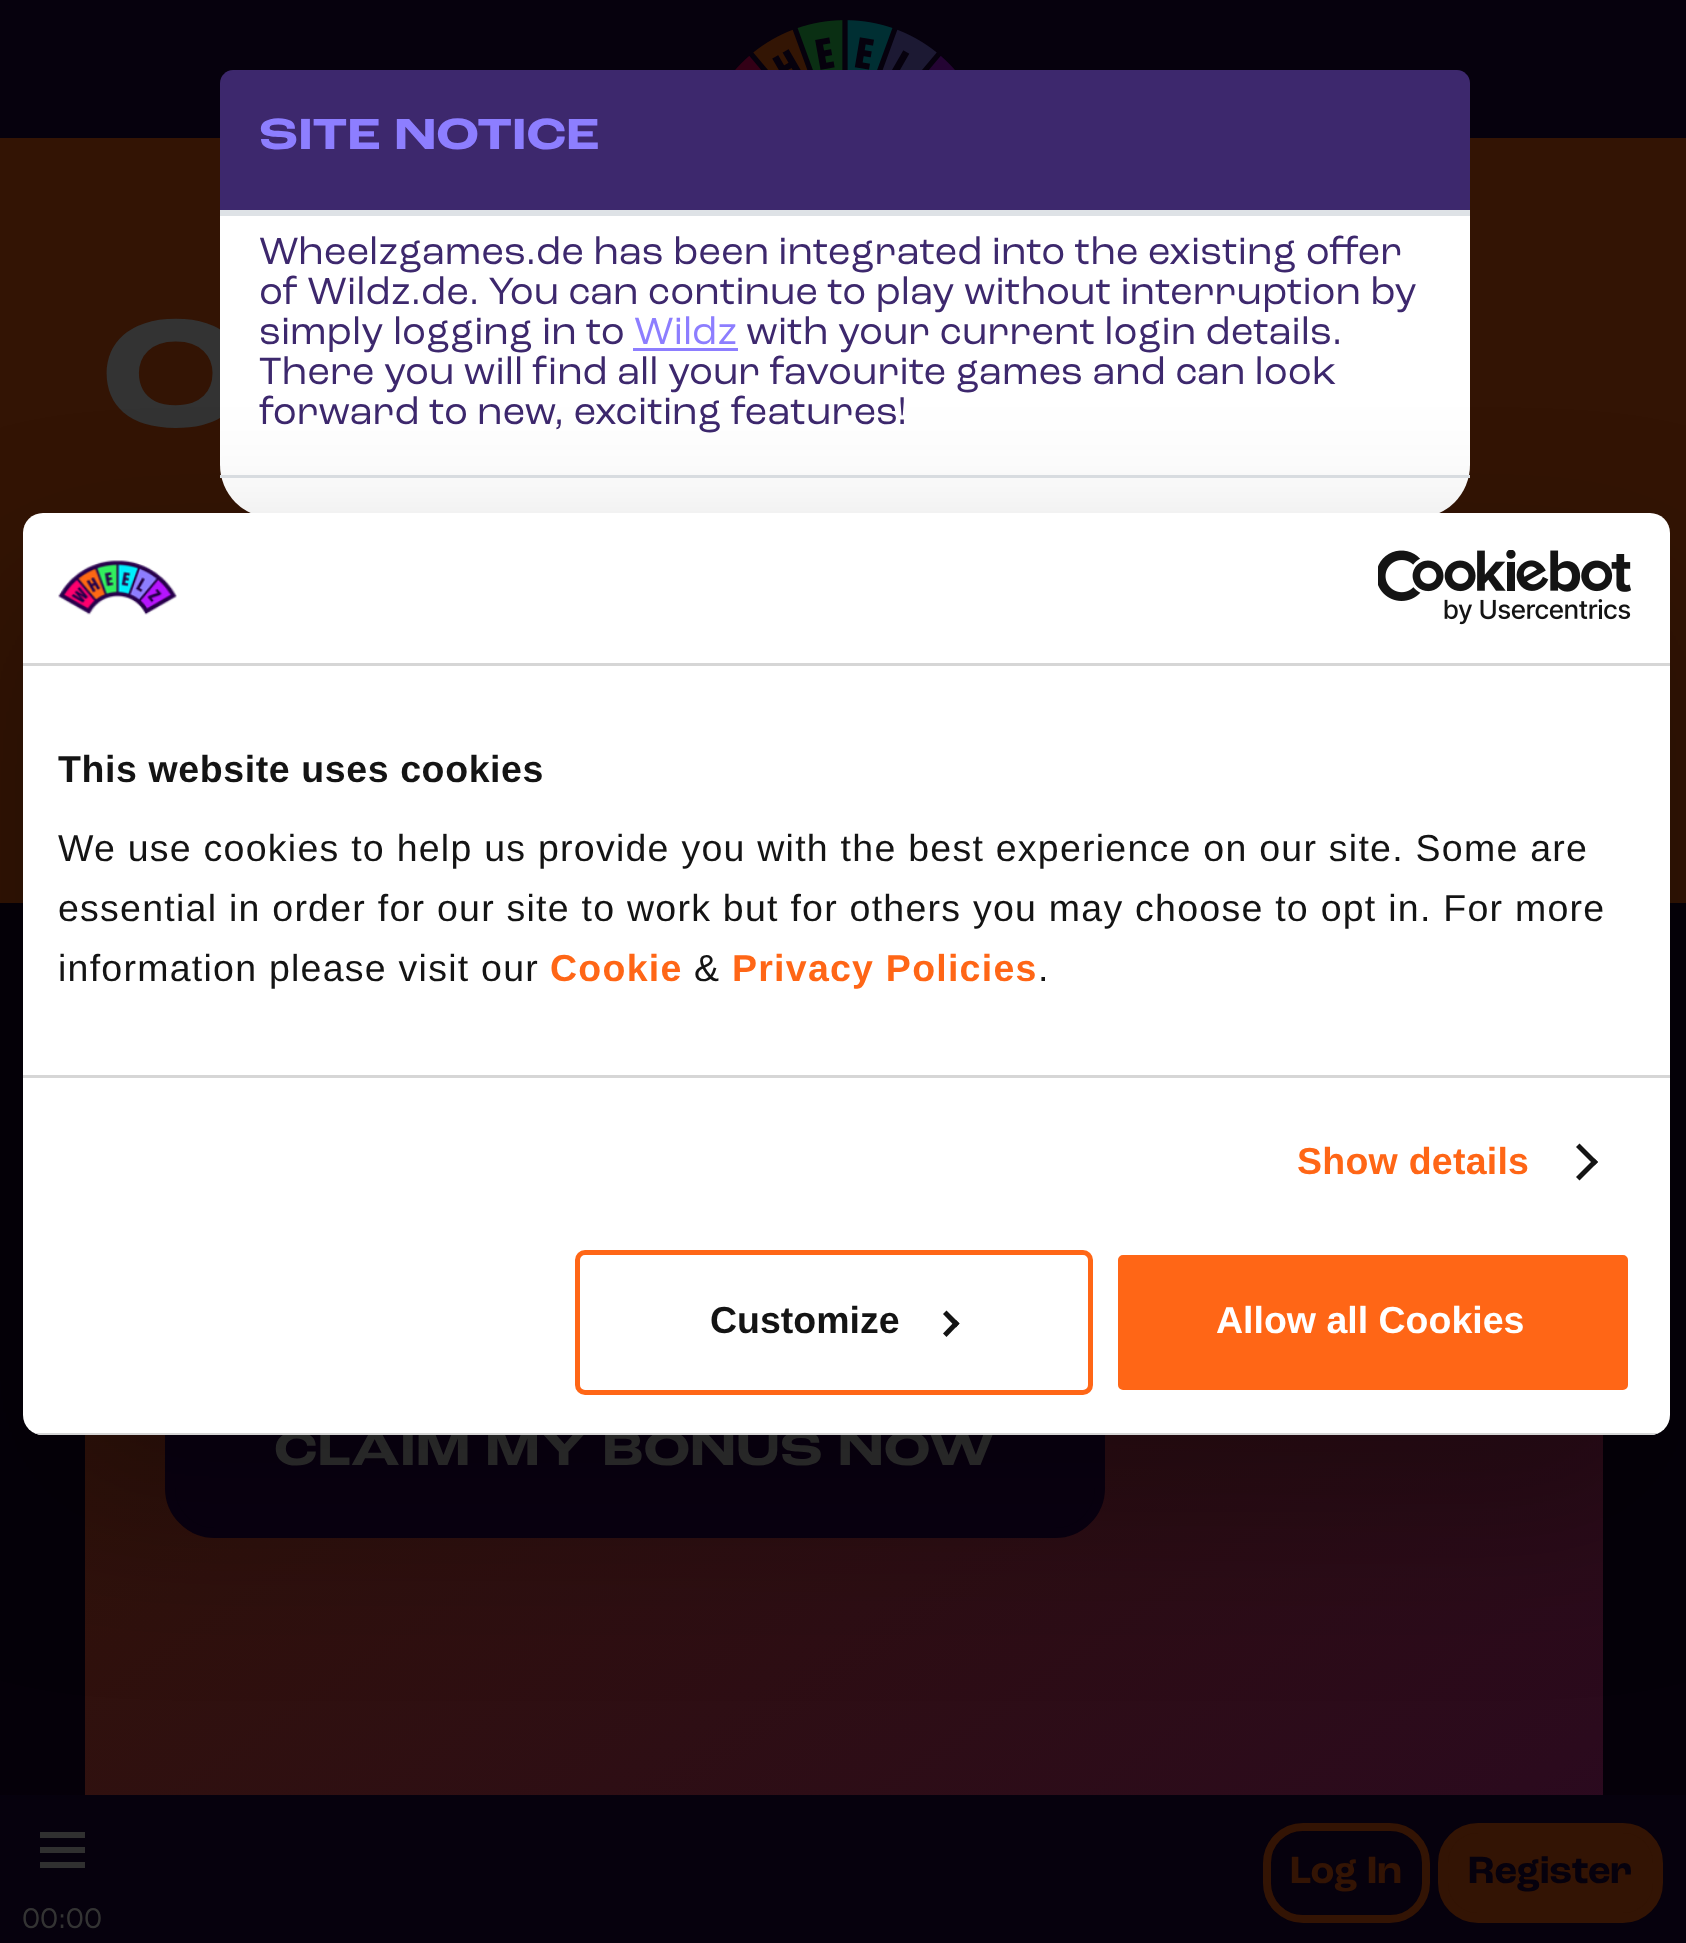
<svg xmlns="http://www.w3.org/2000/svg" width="1686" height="1943">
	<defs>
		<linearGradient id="g1" gradientUnits="userSpaceOnUse" x1="1484" y1="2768" x2="204" y2="939"><stop offset="0" stop-color="#240033" /><stop offset="0.35" stop-color="#2B0A1D" /><stop offset="1" stop-color="#331504" /></linearGradient>
		<clipPath id="clip1"><path d="M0 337H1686V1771H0ZM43 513H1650C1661 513 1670 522 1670 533V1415C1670 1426 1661 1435 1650 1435H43C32 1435 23 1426 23 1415V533C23 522 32 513 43 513Z" clip-rule="evenodd" /></clipPath>
		<clipPath id="clip2"><rect x="23" y="513" width="1647" height="922" rx="20" /></clipPath>
	</defs>
	<rect width="100%" height="100%" fill="#331404" />
	<rect x="0" y="0" width="1686" height="138" fill="#06010D" />
	<text x="101" y="426" font-family="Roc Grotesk" font-size="160" font-weight="700" letter-spacing="8" fill="#333333">O</text>
	<rect x="220" y="70" width="1250" height="448" rx="53" fill="#FFFFFF" />
	<path d="M233 70H1457C1464 70 1470 76 1470 83V213H220V83C220 76 226 70 233 70Z" fill="#3D286D" />
	<rect x="220" y="210" width="1250" height="3" fill="#DEE2E6" />
	<text x="259" y="149" font-family="Roc Grotesk" font-size="45.75" font-weight="700" fill="#8D7EFF">SITE NOTICE</text>
	<rect x="220" y="213" width="1250" height="3" fill="#DEE2E6" />
	<g font-family="Roc Grotesk" font-size="40" fill="#3D286D">
		<text x="259" y="264">Wheelzgames.de has been integrated into the existing offer</text>
		<text x="259" y="304">of Wildz.de. You can continue to play without interruption by</text>
		<text x="259" y="344">simply logging in to</text>
	</g>
	<text x="634" y="344" font-family="Roc Grotesk" font-size="40" fill="#8D7EFF">Wildz</text>
	<rect x="633" y="348" width="105" height="3" fill="#8D7EFF" />
	<g font-family="Roc Grotesk" font-size="40" fill="#3D286D">
		<text x="746" y="344">with your current login details.</text>
		<text x="259" y="384">There you will find all your favourite games and can look</text>
		<text x="259" y="424">forward to new, exciting features!</text>
	</g>
	<rect x="220" y="475" width="1250" height="3" fill="#DEE2E6" />
	<image x="735" y="20" width="220" height="50" href="assets/img1.png" />
	<rect x="0" y="903" width="1686" height="892" fill="#050009" />
	<rect x="85" y="1435" width="1518" height="360" fill="url(#g1)" />
	<rect x="170" y="1373" width="930" height="160" rx="45" fill="#0A0012" stroke="#0A0012" stroke-width="10" />
	<text x="274" y="1465" font-family="Roc Grotesk" font-size="50" font-weight="700" fill="#333333">CLAIM MY BONUS NOW</text>
	<g clip-path="url(#clip1)">
		<rect x="23" y="593" width="1647" height="922" rx="20" fill="#000000" fill-opacity="0.3" filter="blur(85px)" />
	</g>
	<rect x="23" y="513" width="1647" height="922" rx="20" fill="#FFFFFF" />
	<rect x="23" y="663" width="1647" height="3" fill="#D6D6D6" />
	<image x="58" y="560" width="119" height="55" href="assets/img2.png" />
	<image x="1378" y="550" width="253" height="75" href="assets/img3.png" />
	<rect x="23" y="1075" width="1647" height="3" fill="#D6D6D6" />
	<text x="58" y="782" font-family="Liberation Sans" font-size="37.5" font-weight="700" letter-spacing="0.6" fill="#141414">This website uses cookies</text>
	<g font-family="Liberation Sans" font-size="37.5" letter-spacing="1.25" fill="#141414">
		<text x="58" y="861">We use cookies to help us provide you with the best experience on our site. Some are</text>
		<text x="58" y="921">essential in order for our site to work but for others you may choose to opt in. For more</text>
		<text x="58" y="981">information please visit our</text>
	</g>
	<text x="550" y="981" font-family="Liberation Sans" font-size="37.5" font-weight="700" letter-spacing="1.25" fill="#FF6616">Cookie</text>
	<text x="694" y="981" font-family="Liberation Sans" font-size="37.5" letter-spacing="1.25" fill="#141414">&amp;</text>
	<text x="732" y="981" font-family="Liberation Sans" font-size="37.5" font-weight="700" letter-spacing="1.25" fill="#FF6616">Privacy Policies</text>
	<text x="1038" y="981" font-family="Liberation Sans" font-size="37.5" letter-spacing="1.25" fill="#141414">.</text>
	<text x="1297" y="1174" font-family="Liberation Sans" font-size="37.5" font-weight="700" letter-spacing="0.25" fill="#FF6616">Show details</text>
	<path d="M1579.5 1143.5L1598 1162L1594.5 1165.5L1576 1147Z" fill="#141414" />
	<path d="M1594.5 1158.5L1598 1162L1579.5 1180.5L1576 1177Z" fill="#141414" />
	<g clip-path="url(#clip2)">
		<rect x="34" y="1433" width="1625" height="2" fill="#D6D6D6" />
	</g>
	<rect x="577.5" y="1252.5" width="513" height="140" rx="7.5" fill="none" stroke="#FF6616" stroke-width="5" />
	<text x="710" y="1333" font-family="Liberation Sans" font-size="37.5" font-weight="700" fill="#141414">Customize</text>
	<path d="M946.5 1310.5L959.5 1323.5L956 1327.5L943 1314Z" fill="#141414" />
	<path d="M956 1320L959.5 1323.5L946.5 1337L943 1333.5Z" fill="#141414" />
	<rect x="1115.5" y="1252.5" width="515" height="140" rx="7.5" fill="#FF6616" stroke="#FFFFFF" stroke-width="5" />
	<text x="1216" y="1333" font-family="Liberation Sans" font-size="37.5" font-weight="700" fill="#FFFFFF">Allow all Cookies</text>
	<rect x="0" y="1795" width="1686" height="148" fill="#06010D" />
	<rect x="40" y="1832" width="45" height="6" fill="#303030" />
	<rect x="40" y="1847" width="45" height="6" fill="#303030" />
	<rect x="40" y="1862" width="45" height="6" fill="#303030" />
	<rect x="1267" y="1827" width="159" height="92" rx="36" fill="none" stroke="#331404" stroke-width="8" />
	<text x="1290" y="1883" font-family="'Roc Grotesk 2'" font-size="40" font-weight="700" fill="#331404">Log In</text>
	<rect x="1443" y="1828" width="215" height="90" rx="35" fill="#331404" stroke="#331404" stroke-width="10" />
	<text x="1468" y="1883" font-family="'Roc Grotesk 2'" font-size="40" font-weight="700" fill="#06010D">Register</text>
	<text x="22" y="1928" font-family="Roc Grotesk" font-size="30" fill="#333333">00:00</text>
</svg>
